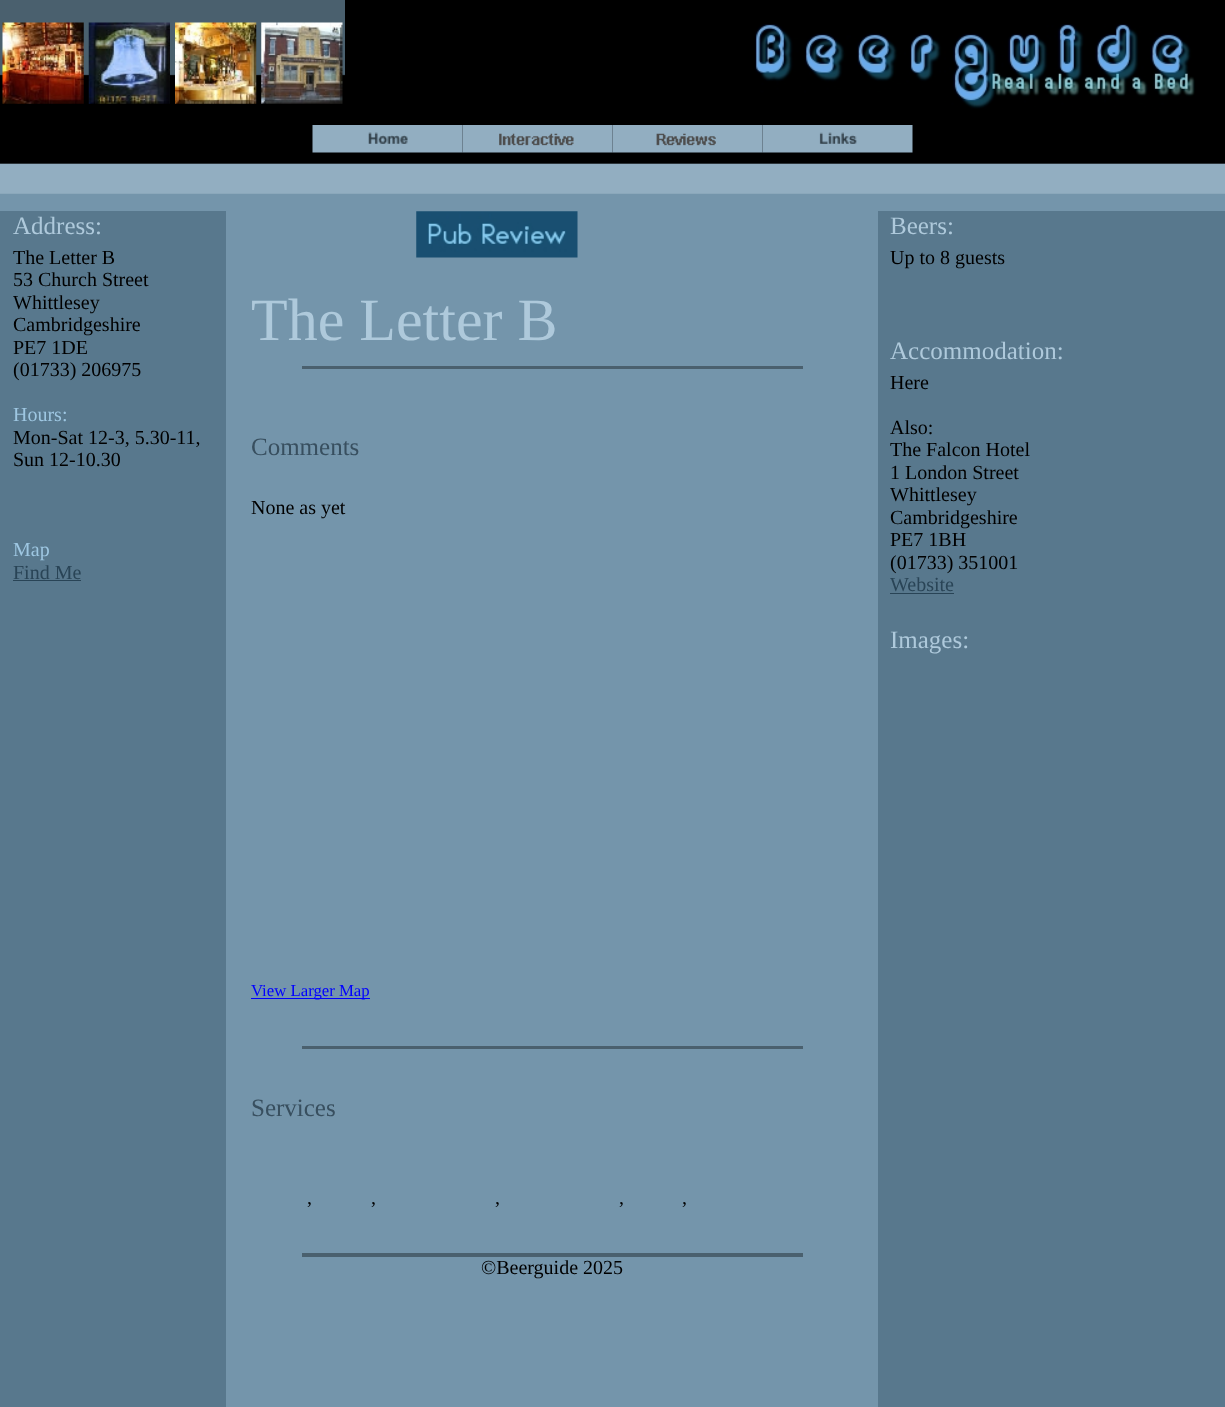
<svg xmlns="http://www.w3.org/2000/svg" width="1225" height="1407">
	<rect width="100%" height="100%" fill="#7495AB" />
	<image x="0" y="0" width="1225" height="194" href="assets/img1.png" />
	<image x="2" y="22" width="82" height="82" href="assets/img2.png" />
	<image x="88" y="22" width="82" height="82" href="assets/img3.png" />
	<image x="175" y="22" width="82" height="82" href="assets/img4.png" />
	<image x="261" y="22" width="82" height="82" href="assets/img5.png" />
	<rect x="345" y="0" width="880" height="76" fill="#000000" />
	<image x="755" y="24" width="440" height="85" href="assets/img6.png" />
	<image x="312" y="125" width="151" height="28" href="assets/img7.png" />
	<image x="462" y="125" width="151" height="28" href="assets/img8.png" />
	<image x="612" y="125" width="151" height="28" href="assets/img9.png" />
	<image x="762" y="125" width="151" height="28" href="assets/img10.png" />
	<rect x="0" y="211" width="226" height="1196" fill="#58788D" />
	<text x="13" y="234" font-family="Liberation Serif" font-size="25" fill="#AEC9DB">Address:</text>
	<g font-family="Liberation Serif" font-size="20" fill="#000000">
		<text x="13" y="264">The Letter B</text>
		<text x="13" y="286">53 Church Street</text>
		<text x="13" y="309">Whittlesey</text>
		<text x="13" y="331">Cambridgeshire</text>
		<text x="13" y="354">PE7 1DE</text>
		<text x="13" y="376">(01733) 206975</text>
	</g>
	<text x="13" y="421" font-family="Liberation Serif" font-size="20" fill="#9EC7E2">Hours:</text>
	<g font-family="Liberation Serif" font-size="20" fill="#000000">
		<text x="13" y="444">Mon-Sat 12-3, 5.30-11,</text>
		<text x="13" y="466">Sun 12-10.30</text>
	</g>
	<text x="13" y="556" font-family="Liberation Serif" font-size="20" fill="#9EC7E2">Map</text>
	<text x="13" y="579" font-family="Liberation Serif" font-size="20" fill="#294456">Find Me</text>
	<rect x="13" y="580" width="68" height="1" fill="#294456" />
	<image x="416" y="211" width="162" height="47" href="assets/img11.png" />
	<text x="251" y="340" font-family="Liberation Serif" font-size="60" fill="#AEC9DB">The Letter B</text>
	<rect x="302" y="366" width="501" height="3" fill="#4A606E" />
	<text x="251" y="455" font-family="Liberation Serif" font-size="25" fill="#384F5F">Comments</text>
	<text x="251" y="514" font-family="Liberation Serif" font-size="20" fill="#000000">None as yet</text>
	<rect x="251" y="998" width="119" height="1" fill="#0000FF" />
	<text x="251" y="996" font-family="Liberation Serif" font-size="16.75" fill="#0000FF">View Larger Map</text>
	<rect x="302" y="1046" width="501" height="3" fill="#4A606E" />
	<text x="251" y="1116" font-family="Liberation Serif" font-size="25" fill="#384F5F">Services</text>
	<g font-family="Liberation Serif" font-size="20" fill="#000000">
		<text x="307" y="1204">,</text>
		<text x="371" y="1204">,</text>
		<text x="495" y="1204">,</text>
		<text x="619" y="1204">,</text>
		<text x="682" y="1204">,</text>
	</g>
	<rect x="302" y="1253" width="501" height="4" fill="#4A606E" />
	<text x="481" y="1274" font-family="Liberation Serif" font-size="20" fill="#000000">©Beerguide 2025</text>
	<rect x="878" y="211" width="347" height="1196" fill="#58788D" />
	<text x="890" y="234" font-family="Liberation Serif" font-size="25" fill="#AEC9DB">Beers:</text>
	<text x="890" y="264" font-family="Liberation Serif" font-size="20" fill="#000000">Up to 8 guests</text>
	<text x="890" y="359" font-family="Liberation Serif" font-size="25" fill="#AEC9DB">Accommodation:</text>
	<g font-family="Liberation Serif" font-size="20" fill="#000000">
		<text x="890" y="389">Here</text>
		<text x="890" y="434">Also:</text>
		<text x="890" y="456">The Falcon Hotel</text>
		<text x="890" y="479">1 London Street</text>
		<text x="890" y="501">Whittlesey</text>
		<text x="890" y="524">Cambridgeshire</text>
		<text x="890" y="546">PE7 1BH</text>
		<text x="890" y="569">(01733) 351001</text>
	</g>
	<text x="890" y="591" font-family="Liberation Serif" font-size="20" fill="#294456">Website</text>
	<rect x="890" y="593" width="64" height="1" fill="#294456" />
	<text x="890" y="648" font-family="Liberation Serif" font-size="25" fill="#AEC9DB">Images:</text>
</svg>
